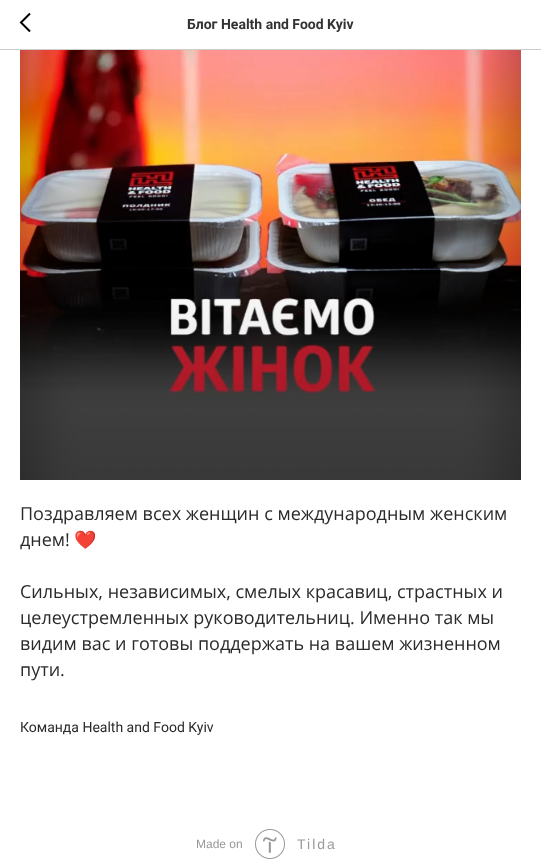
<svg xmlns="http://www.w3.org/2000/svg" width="541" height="865">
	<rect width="100%" height="100%" fill="#FFFFFF" />
	<rect x="0" y="49" width="541" height="1" fill="#CCCCCC" />
	<path d="M30 31.5L21 22.5L30 13.5" fill="none" stroke="#000000" stroke-width="2" />
	<text x="187" y="29" font-family="Roboto" font-size="14" font-weight="700" fill="#333333">Блог Health and Food Kyiv</text>
	<image x="20" y="50" width="501" height="430" href="assets/img1.png" />
	<g font-family="Open Sans" font-size="18" fill="#2A2A2B">
		<text x="20" y="520">Поздравляем всех женщин с международным женским</text>
		<text x="20" y="546">днем!</text>
	</g>
	<text x="74" y="546" font-family="Noto Color Emoji" font-size="18" fill="#2A2A2B">❤️</text>
	<g font-family="Open Sans" font-size="18" fill="#2A2A2B">
		<text x="20" y="598">Сильных, независимых, смелых красавиц, страстных и</text>
		<text x="20" y="624">целеустремленных руководительниц. Именно так мы</text>
		<text x="20" y="650">видим вас и готовы поддержать на вашем жизненном</text>
		<text x="20" y="676">пути.</text>
	</g>
	<text x="20" y="732" font-family="Roboto" font-size="14" fill="#2A2A2B">Команда Health and Food Kyiv</text>
	<text x="196" y="848" font-family="Liberation Sans" font-size="12" fill="#999999">Made on</text>
	<image x="255" y="829" width="30" height="30" href="assets/img2.png" />
	<text x="297" y="849" font-family="Liberation Sans" font-size="14" letter-spacing="2" fill="#999999">Tilda</text>
</svg>
